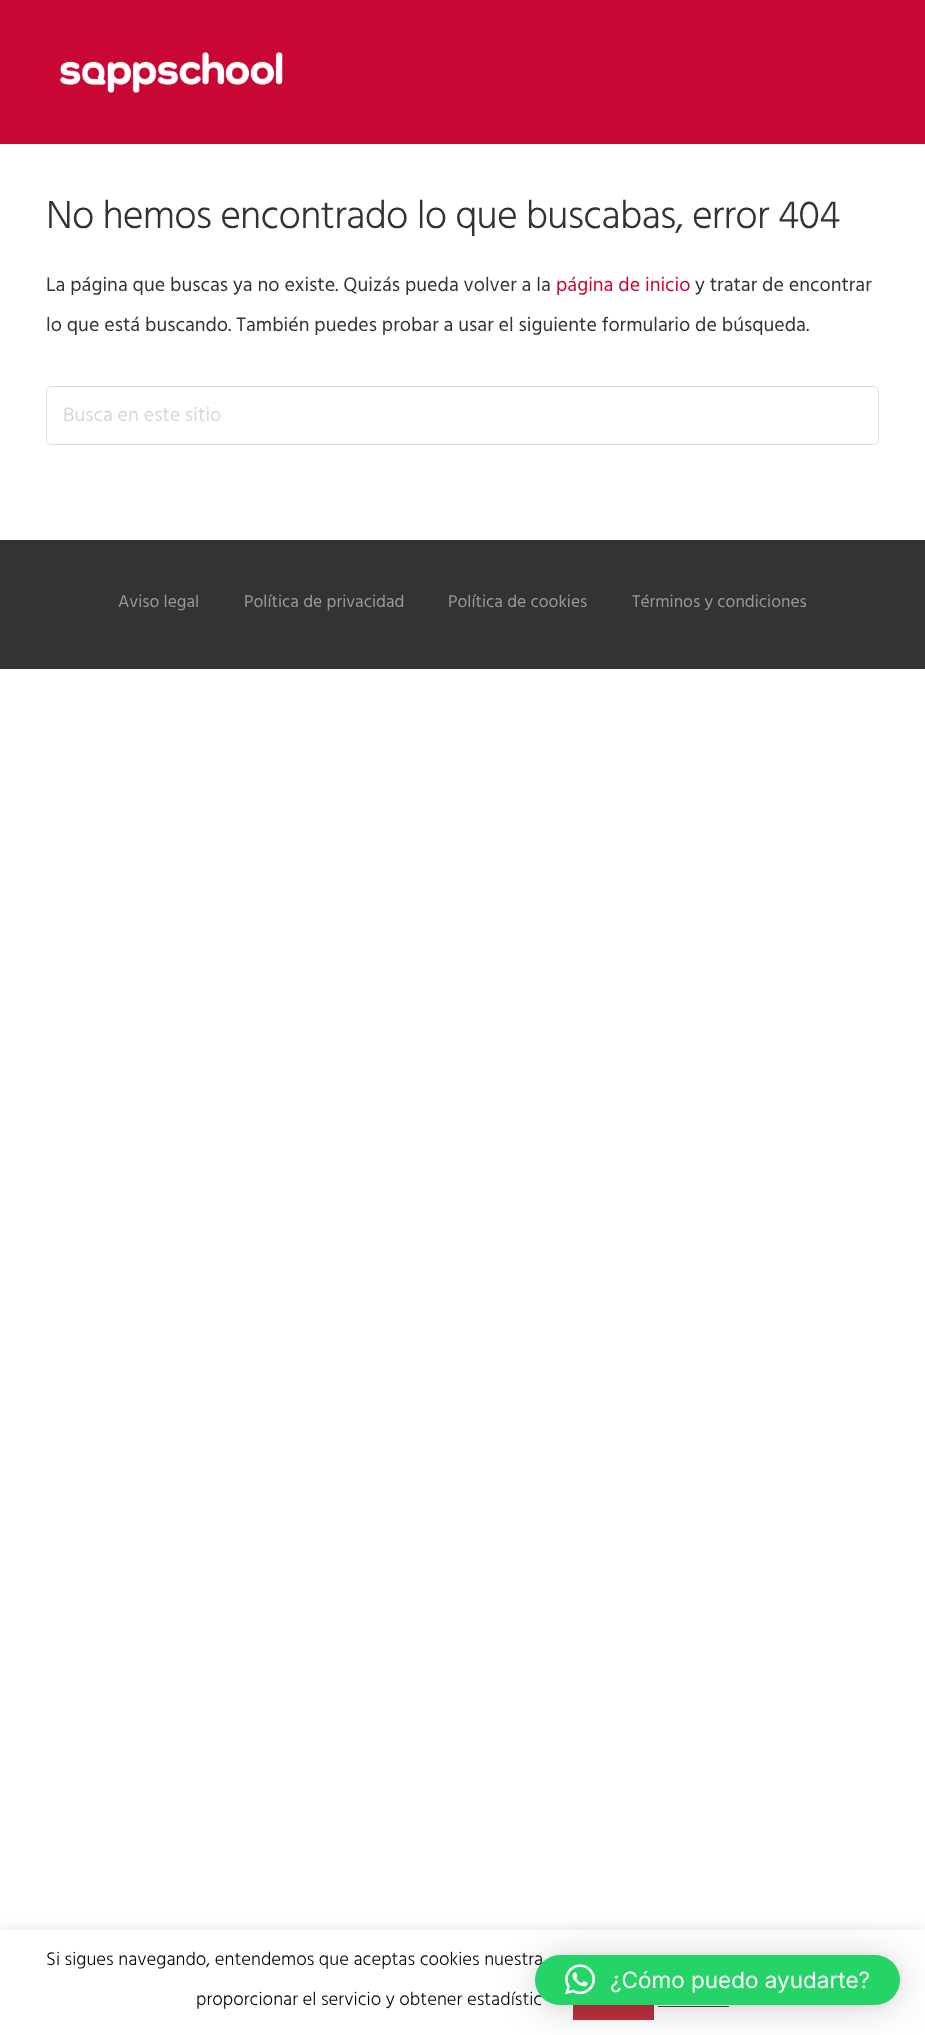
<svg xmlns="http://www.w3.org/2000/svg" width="925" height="2035">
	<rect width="100%" height="100%" fill="#FFFFFF" />
	<rect x="0" y="0" width="925" height="144" fill="#C80735" />
	<image x="60" y="52" width="223" height="41" href="assets/img1.png" />
	<text x="46" y="228" font-family="Hind" font-size="40" font-weight="300" letter-spacing="-0.8" fill="#333333">No hemos encontrado lo que buscabas, error 404</text>
	<text x="46" y="291" font-family="Hind" font-size="20" fill="#333333">La página que buscas ya no existe. Quizás pueda volver a la</text>
	<text x="556" y="291" font-family="Hind" font-size="20" fill="#C80735">página de inicio</text>
	<g font-family="Hind" font-size="20" fill="#333333">
		<text x="695" y="291">y tratar de encontrar</text>
		<text x="46" y="331">lo que está buscando. También puedes probar a usar el siguiente formulario de búsqueda.</text>
	</g>
	<rect x="46.5" y="386.5" width="832" height="58" rx="4.5" fill="none" stroke="#DCDCDC" />
	<text x="63" y="421" font-family="Hind" font-size="20" fill="#D8D8D8">Busca en este sitio</text>
	<rect x="0" y="540" width="925" height="129" fill="#333333" />
	<g font-family="Hind" font-size="17.5" fill="#999999">
		<text x="118" y="607">Aviso legal</text>
		<text x="244" y="607">Política de privacidad</text>
		<text x="448" y="607">Política de cookies</text>
		<text x="632" y="607">Términos y condiciones</text>
	</g>
	<rect x="0" y="1929" width="925" height="105" fill="#ACABAB" fill-opacity="0.3" filter="blur(6px)" />
	<rect x="0" y="1930" width="925" height="105" fill="#FFFFFF" />
	<g font-family="Hind" font-size="18.75" font-weight="300" fill="#000000">
		<text x="46" y="1965">Si sigues navegando, entendemos que aceptas cookies nuestra</text>
		<text x="196" y="2005">proporcionar el servicio y obtener estadístic</text>
	</g>
	<rect x="573" y="2005" width="81" height="15" fill="#BE2E3F" />
	<rect x="658" y="2006" width="71" height="1" fill="#444444" />
	<rect x="535" y="1958" width="365" height="50" rx="25" fill="#000000" fill-opacity="0.16" filter="blur(20px)" />
	<rect x="535" y="1956" width="365" height="50" rx="25" fill="#000000" fill-opacity="0.06" filter="blur(4px)" />
	<rect x="535" y="1955" width="365" height="50" rx="25" fill="#25D366" />
	<image x="565" y="1964" width="30" height="31" href="assets/img2.png" />
	<text x="610" y="1988" font-family="Inter" font-size="22.5" fill="#FFFFFF">¿Cómo puedo ayudarte?</text>
</svg>
